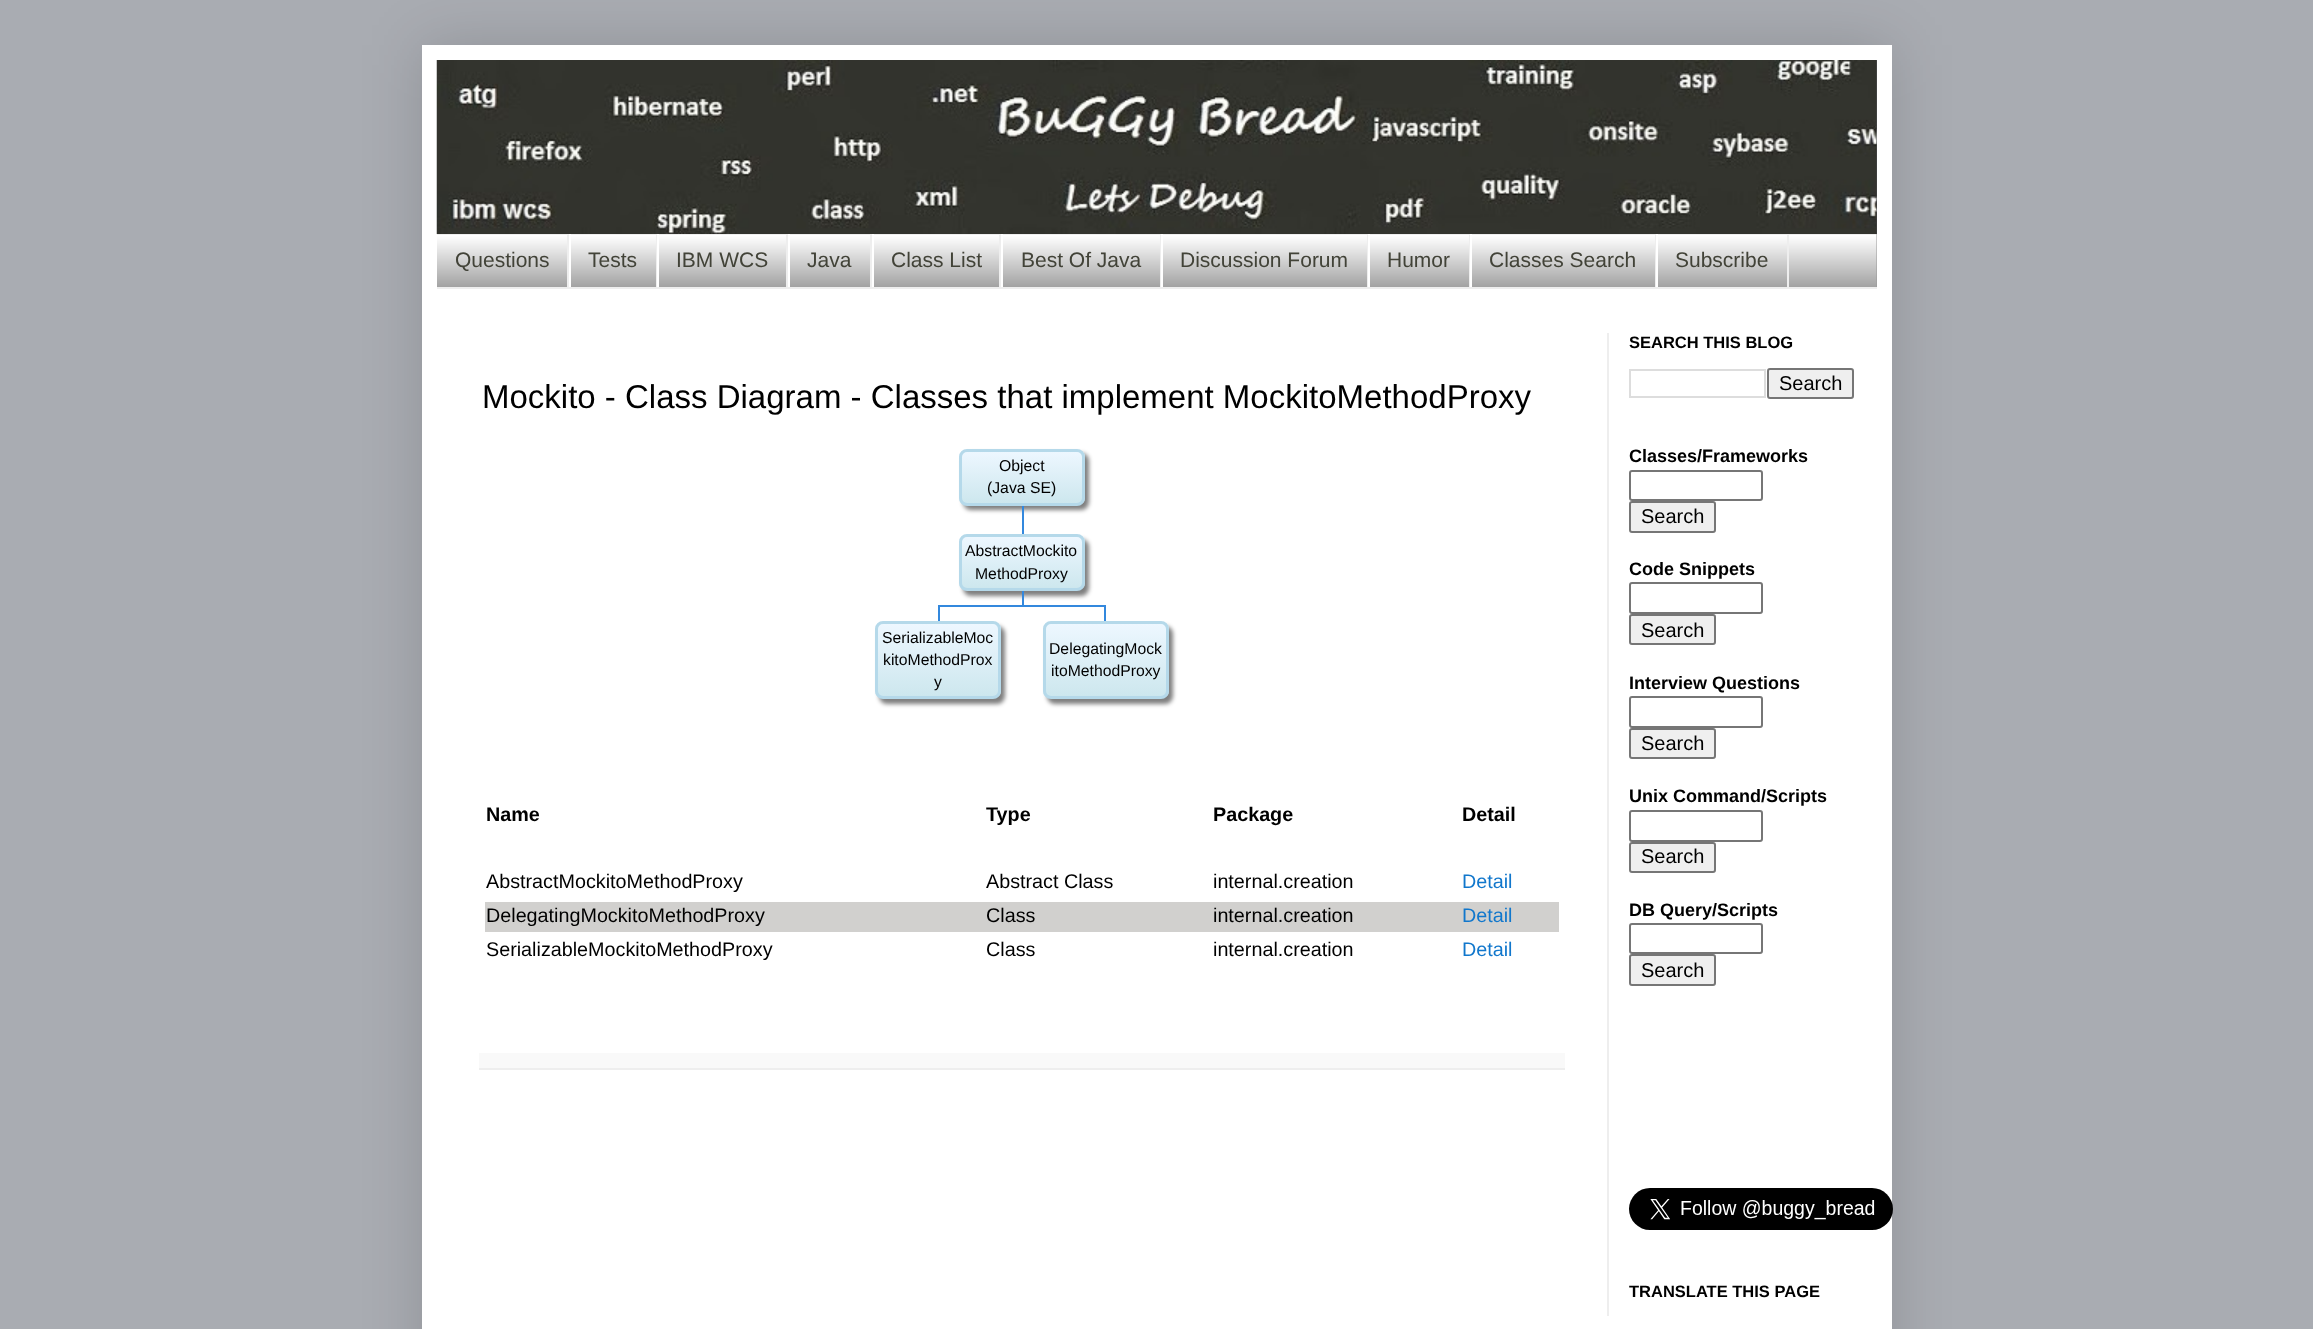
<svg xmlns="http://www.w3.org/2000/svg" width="2313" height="1329">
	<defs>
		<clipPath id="clip1"><rect x="959" y="449" width="126" height="57" rx="8" /></clipPath>
		<linearGradient id="g1" gradientUnits="userSpaceOnUse" x1="962" y1="452" x2="962" y2="503"><stop offset="0" stop-color="#EDF7FF" /><stop offset="1" stop-color="#CDE7EE" /></linearGradient>
		<clipPath id="clip2"><rect x="959" y="534" width="126" height="57" rx="8" /></clipPath>
		<linearGradient id="g2" gradientUnits="userSpaceOnUse" x1="962" y1="537" x2="962" y2="588"><stop offset="0" stop-color="#EDF7FF" /><stop offset="1" stop-color="#CDE7EE" /></linearGradient>
		<clipPath id="clip3"><rect x="875" y="621" width="126" height="78" rx="8" /></clipPath>
		<linearGradient id="g3" gradientUnits="userSpaceOnUse" x1="878" y1="624" x2="878" y2="696"><stop offset="0" stop-color="#EDF7FF" /><stop offset="1" stop-color="#CDE7EE" /></linearGradient>
		<clipPath id="clip4"><rect x="1043" y="621" width="126" height="78" rx="8" /></clipPath>
		<linearGradient id="g4" gradientUnits="userSpaceOnUse" x1="1046" y1="624" x2="1046" y2="696"><stop offset="0" stop-color="#EDF7FF" /><stop offset="1" stop-color="#CDE7EE" /></linearGradient>
	</defs>
	<rect width="100%" height="100%" fill="#A9ACB2" />
	<rect x="422" y="45" width="1470" height="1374" fill="#000000" fill-opacity="0.15" filter="blur(30px)" />
	<rect x="422" y="45" width="1470" height="1284" fill="#FFFFFF" />
	<rect x="1876" y="60" width="1" height="174" fill="#3F4044" />
	<image x="1876" y="60" width="1" height="174" href="assets/img1.png" />
	<image x="436" y="60" width="1441" height="174" href="assets/img2.png" />
	<rect x="437" y="234" width="1440" height="53" fill="#999999" />
	<image x="437" y="234" width="1440" height="53" href="assets/img3.png" />
	<rect x="437" y="287" width="1440" height="2" fill="#EEEEEE" />
	<rect x="567" y="234" width="2" height="53" fill="#EEEEEE" />
	<text x="455" y="267" font-family="Liberation Sans" font-size="21" fill="#424338">Questions</text>
	<rect x="656" y="234" width="1" height="53" fill="#EEEEEE" />
	<rect x="569" y="234" width="2" height="53" fill="#FFFFFF" />
	<text x="588" y="267" font-family="Liberation Sans" font-size="21" fill="#424338">Tests</text>
	<rect x="786" y="234" width="2" height="53" fill="#EEEEEE" />
	<rect x="657" y="234" width="2" height="53" fill="#FFFFFF" />
	<text x="676" y="267" font-family="Liberation Sans" font-size="21" fill="#424338">IBM WCS</text>
	<rect x="870" y="234" width="2" height="53" fill="#EEEEEE" />
	<rect x="788" y="234" width="2" height="53" fill="#FFFFFF" />
	<text x="807" y="267" font-family="Liberation Sans" font-size="21" fill="#424338">Java</text>
	<rect x="999" y="234" width="2" height="53" fill="#EEEEEE" />
	<rect x="872" y="234" width="2" height="53" fill="#FFFFFF" />
	<text x="891" y="267" font-family="Liberation Sans" font-size="21" fill="#424338">Class List</text>
	<rect x="1160" y="234" width="1" height="53" fill="#EEEEEE" />
	<rect x="1001" y="234" width="2" height="53" fill="#FFFFFF" />
	<text x="1021" y="267" font-family="Liberation Sans" font-size="21" fill="#424338">Best Of Java</text>
	<rect x="1367" y="234" width="1" height="53" fill="#EEEEEE" />
	<rect x="1161" y="234" width="2" height="53" fill="#FFFFFF" />
	<text x="1180" y="267" font-family="Liberation Sans" font-size="21" fill="#424338">Discussion Forum</text>
	<rect x="1469" y="234" width="1" height="53" fill="#EEEEEE" />
	<rect x="1368" y="234" width="2" height="53" fill="#FFFFFF" />
	<text x="1387" y="267" font-family="Liberation Sans" font-size="21" fill="#424338">Humor</text>
	<rect x="1655" y="234" width="1" height="53" fill="#EEEEEE" />
	<rect x="1470" y="234" width="2" height="53" fill="#FFFFFF" />
	<text x="1489" y="267" font-family="Liberation Sans" font-size="21" fill="#424338">Classes Search</text>
	<rect x="1787" y="234" width="2" height="53" fill="#EEEEEE" />
	<rect x="1656" y="234" width="2" height="53" fill="#FFFFFF" />
	<text x="1675" y="267" font-family="Liberation Sans" font-size="21" fill="#424338">Subscribe</text>
	<rect x="1607" y="333" width="2" height="983" fill="#EEEEEE" />
	<text x="482" y="408" font-family="Liberation Sans" font-size="33" fill="#000000">Mockito - Class Diagram - Classes that implement MockitoMethodProxy</text>
	<rect x="963" y="453" width="126" height="57" rx="8" fill="#000000" fill-opacity="0.5" filter="blur(2px)" />
	<g clip-path="url(#clip1)">
		<rect x="959" y="452" width="126" height="51" fill="url(#g1)" />
	</g>
	<rect x="960.5" y="450.5" width="123" height="54" rx="6.5" fill="none" stroke="#B5D9EA" stroke-width="3" />
	<g font-family="Liberation Sans" font-size="15.75" fill="#000000">
		<text x="999" y="471">Object</text>
		<text x="987" y="493">(Java SE)</text>
	</g>
	<rect x="1022" y="506" width="2" height="28" fill="#3388DD" />
	<rect x="963" y="539" width="126" height="57" rx="8" fill="#000000" fill-opacity="0.5" filter="blur(2px)" />
	<g clip-path="url(#clip2)">
		<rect x="959" y="537" width="126" height="51" fill="url(#g2)" />
	</g>
	<rect x="960.5" y="535.5" width="123" height="54" rx="6.5" fill="none" stroke="#B5D9EA" stroke-width="3" />
	<g font-family="Liberation Sans" font-size="15.75" fill="#000000">
		<text x="965" y="556">AbstractMockito</text>
		<text x="975" y="579">MethodProxy</text>
	</g>
	<rect x="938" y="605" width="168" height="2" fill="#3388DD" />
	<rect x="1022" y="591" width="2" height="15" fill="#3388DD" />
	<rect x="938" y="606" width="2" height="15" fill="#3388DD" />
	<rect x="1104" y="606" width="2" height="15" fill="#3388DD" />
	<rect x="879" y="626" width="126" height="78" rx="8" fill="#000000" fill-opacity="0.5" filter="blur(2px)" />
	<g clip-path="url(#clip3)">
		<rect x="875" y="624" width="126" height="72" fill="url(#g3)" />
	</g>
	<rect x="876.5" y="622.5" width="123" height="75" rx="6.5" fill="none" stroke="#B5D9EA" stroke-width="3" />
	<g font-family="Liberation Sans" font-size="15.75" fill="#000000">
		<text x="882" y="643">SerializableMoc</text>
		<text x="883" y="665">kitoMethodProx</text>
		<text x="934" y="687">y</text>
	</g>
	<rect x="1047" y="626" width="126" height="78" rx="8" fill="#000000" fill-opacity="0.5" filter="blur(2px)" />
	<g clip-path="url(#clip4)">
		<rect x="1043" y="624" width="126" height="72" fill="url(#g4)" />
	</g>
	<rect x="1044.5" y="622.5" width="123" height="75" rx="6.5" fill="none" stroke="#B5D9EA" stroke-width="3" />
	<g font-family="Liberation Sans" font-size="15.75" fill="#000000">
		<text x="1049" y="654">DelegatingMock</text>
		<text x="1051" y="676">itoMethodProxy</text>
	</g>
	<g font-family="Liberation Sans" font-size="19.75" font-weight="700" fill="#000000">
		<text x="486" y="821">Name</text>
		<text x="986" y="821">Type</text>
		<text x="1213" y="821">Package</text>
		<text x="1462" y="821">Detail</text>
	</g>
	<g font-family="Liberation Sans" font-size="19.75" fill="#000000">
		<text x="486" y="888">AbstractMockitoMethodProxy</text>
		<text x="986" y="888">Abstract Class</text>
		<text x="1213" y="888">internal.creation</text>
	</g>
	<text x="1462" y="888" font-family="Liberation Sans" font-size="19.75" fill="#1177CC">Detail</text>
	<rect x="485" y="902" width="1074" height="30" fill="#D1D0CE" />
	<g font-family="Liberation Sans" font-size="19.75" fill="#000000">
		<text x="486" y="922">DelegatingMockitoMethodProxy</text>
		<text x="986" y="922">Class</text>
		<text x="1213" y="922">internal.creation</text>
	</g>
	<text x="1462" y="922" font-family="Liberation Sans" font-size="19.75" fill="#1177CC">Detail</text>
	<g font-family="Liberation Sans" font-size="19.75" fill="#000000">
		<text x="486" y="956">SerializableMockitoMethodProxy</text>
		<text x="986" y="956">Class</text>
		<text x="1213" y="956">internal.creation</text>
	</g>
	<text x="1462" y="956" font-family="Liberation Sans" font-size="19.75" fill="#1177CC">Detail</text>
	<rect x="479" y="1053" width="1086" height="15" fill="#F9F9F9" />
	<rect x="479" y="1068" width="1086" height="2" fill="#EEEEEE" />
	<text x="1629" y="348" font-family="Liberation Sans" font-size="16.5" font-weight="700" fill="#000000">SEARCH THIS BLOG</text>
	<rect x="1630" y="370" width="135" height="27" fill="none" stroke="#DDDDDD" stroke-width="2" />
	<rect x="1768" y="369" width="85" height="29" rx="2" fill="#EFEFEF" stroke="#767676" stroke-width="2" />
	<text x="1779" y="390" font-family="Liberation Sans" font-size="20" fill="#000000">Search</text>
	<text x="1629" y="462" font-family="Liberation Sans" font-size="18" font-weight="700" fill="#000000">Classes/Frameworks</text>
	<rect x="1630" y="471" width="132" height="29" rx="2" fill="none" stroke="#767676" stroke-width="2" />
	<rect x="1630" y="502" width="85" height="30" rx="2" fill="#EFEFEF" stroke="#767676" stroke-width="2" />
	<text x="1641" y="523" font-family="Liberation Sans" font-size="20" fill="#000000">Search</text>
	<text x="1629" y="575" font-family="Liberation Sans" font-size="18" font-weight="700" fill="#000000">Code Snippets</text>
	<rect x="1630" y="583" width="132" height="30" rx="2" fill="none" stroke="#767676" stroke-width="2" />
	<rect x="1630" y="615" width="85" height="29" rx="2" fill="#EFEFEF" stroke="#767676" stroke-width="2" />
	<text x="1641" y="637" font-family="Liberation Sans" font-size="20" fill="#000000">Search</text>
	<text x="1629" y="689" font-family="Liberation Sans" font-size="18" font-weight="700" fill="#000000">Interview Questions</text>
	<rect x="1630" y="697" width="132" height="30" rx="2" fill="none" stroke="#767676" stroke-width="2" />
	<rect x="1630" y="729" width="85" height="29" rx="2" fill="#EFEFEF" stroke="#767676" stroke-width="2" />
	<text x="1641" y="750" font-family="Liberation Sans" font-size="20" fill="#000000">Search</text>
	<text x="1629" y="802" font-family="Liberation Sans" font-size="18" font-weight="700" fill="#000000">Unix Command/Scripts</text>
	<rect x="1630" y="811" width="132" height="30" rx="2" fill="none" stroke="#767676" stroke-width="2" />
	<rect x="1630" y="843" width="85" height="29" rx="2" fill="#EFEFEF" stroke="#767676" stroke-width="2" />
	<text x="1641" y="863" font-family="Liberation Sans" font-size="20" fill="#000000">Search</text>
	<text x="1629" y="916" font-family="Liberation Sans" font-size="18" font-weight="700" fill="#000000">DB Query/Scripts</text>
	<rect x="1630" y="924" width="132" height="29" rx="2" fill="none" stroke="#767676" stroke-width="2" />
	<rect x="1630" y="955" width="85" height="30" rx="2" fill="#EFEFEF" stroke="#767676" stroke-width="2" />
	<text x="1641" y="977" font-family="Liberation Sans" font-size="20" fill="#000000">Search</text>
	<image x="1629" y="1188" width="264" height="42" href="assets/img4.png" />
	<text x="1629" y="1297" font-family="Liberation Sans" font-size="16.5" font-weight="700" fill="#000000">TRANSLATE THIS PAGE</text>
</svg>
